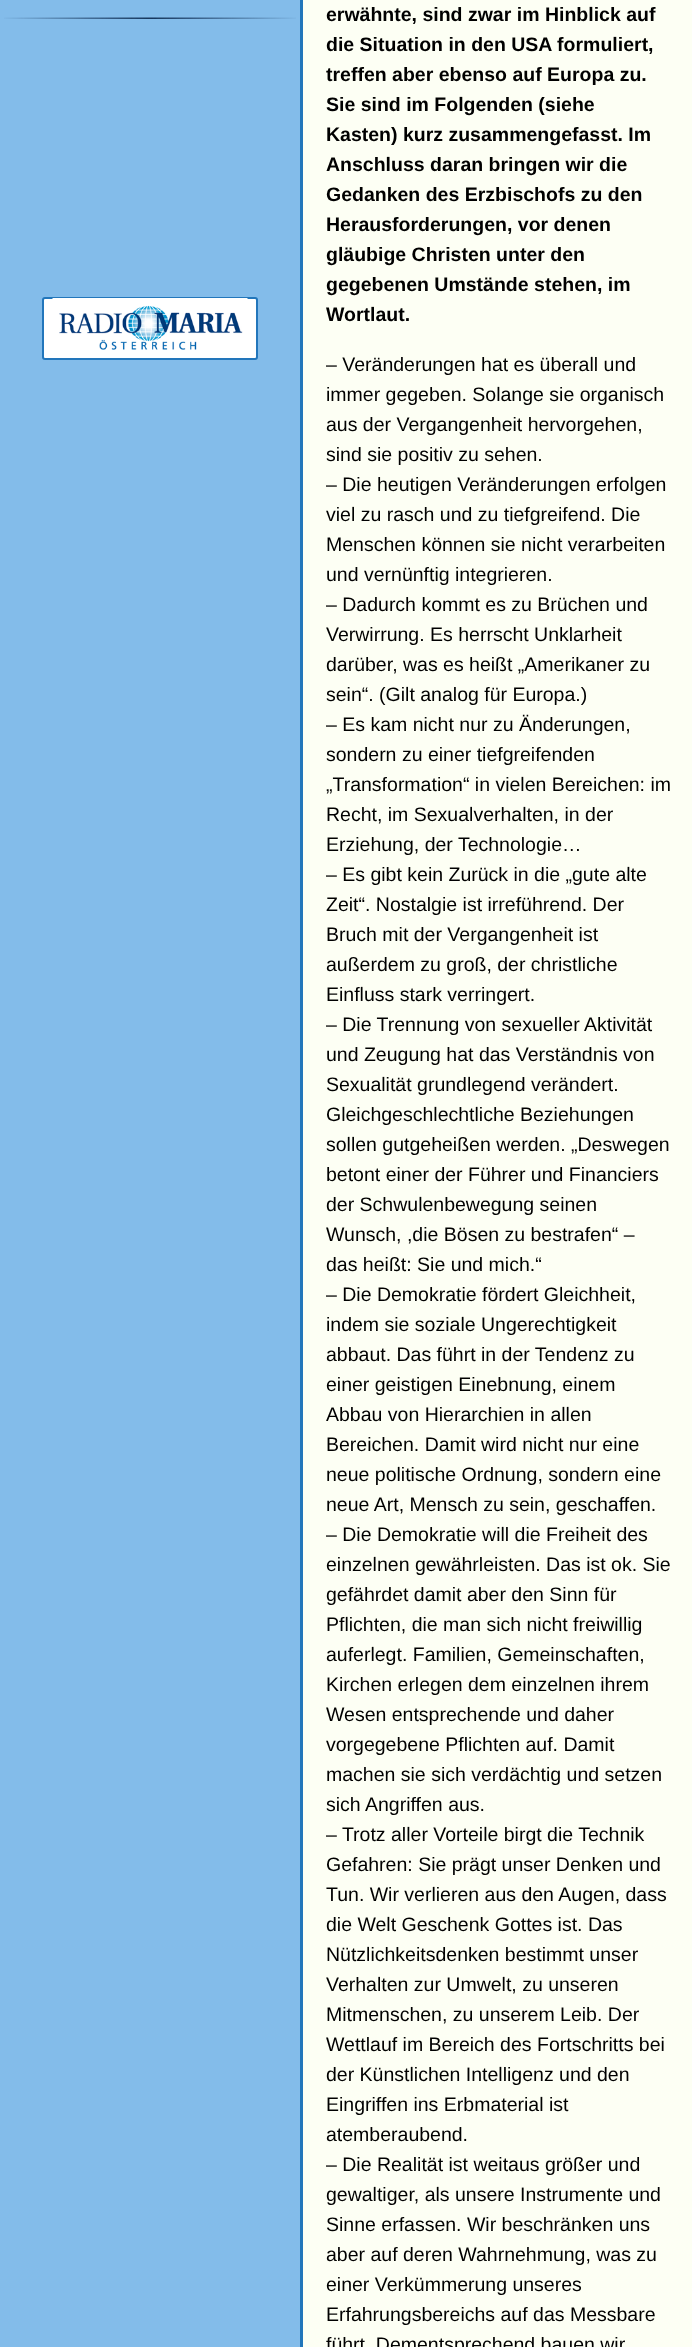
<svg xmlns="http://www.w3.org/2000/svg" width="692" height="2347">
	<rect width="100%" height="100%" fill="#83BCEA" />
	<rect x="300" y="0" width="3" height="2347" fill="#2276BB" />
	<image x="4" y="17" width="292" height="2" href="assets/img1.png" />
	<rect x="43" y="298" width="214" height="61" rx="2" fill="#FFFFFF" stroke="#2276BB" stroke-width="2" />
	<image x="52" y="298" width="196" height="52" href="assets/img2.png" />
	<rect x="303" y="0" width="389" height="2347" fill="#FDFFF4" />
	<g font-family="Liberation Sans" font-size="19.5" font-weight="700" fill="#000000">
		<text x="326" y="21">erwähnte, sind zwar im Hinblick auf</text>
		<text x="326" y="51">die Situation in den USA formuliert,</text>
		<text x="326" y="81">treffen aber ebenso auf Europa zu.</text>
		<text x="326" y="111">Sie sind im Folgenden (siehe</text>
		<text x="326" y="141">Kasten) kurz zusammengefasst. Im</text>
		<text x="326" y="171">Anschluss daran bringen wir die</text>
		<text x="326" y="201">Gedanken des Erzbischofs zu den</text>
		<text x="326" y="231">Herausforderungen, vor denen</text>
		<text x="326" y="261">gläubige Christen unter den</text>
		<text x="326" y="291">gegebenen Umstände stehen, im</text>
		<text x="326" y="321">Wortlaut.</text>
	</g>
	<g font-family="Liberation Sans" font-size="19.5" fill="#000000">
		<text x="326" y="371">– Veränderungen hat es überall und</text>
		<text x="326" y="401">immer gegeben. Solange sie organisch</text>
		<text x="326" y="431">aus der Vergangenheit hervorgehen,</text>
		<text x="326" y="461">sind sie positiv zu sehen.</text>
		<text x="326" y="491">– Die heutigen Veränderungen erfolgen</text>
		<text x="326" y="521">viel zu rasch und zu tiefgreifend. Die</text>
		<text x="326" y="551">Menschen können sie nicht verarbeiten</text>
		<text x="326" y="581">und vernünftig integrieren.</text>
		<text x="326" y="611">– Dadurch kommt es zu Brüchen und</text>
		<text x="326" y="641">Verwirrung. Es herrscht Unklarheit</text>
		<text x="326" y="671">darüber, was es heißt „Amerikaner zu</text>
		<text x="326" y="701">sein“. (Gilt analog für Europa.)</text>
		<text x="326" y="731">– Es kam nicht nur zu Änderungen,</text>
		<text x="326" y="761">sondern zu einer tiefgreifenden</text>
		<text x="326" y="791">„Transformation“ in vielen Bereichen: im</text>
		<text x="326" y="821">Recht, im Sexualverhalten, in der</text>
		<text x="326" y="851">Erziehung, der Technologie…</text>
		<text x="326" y="881">– Es gibt kein Zurück in die „gute alte</text>
		<text x="326" y="911">Zeit“. Nostalgie ist irreführend. Der</text>
		<text x="326" y="941">Bruch mit der Vergangenheit ist</text>
		<text x="326" y="971">außerdem zu groß, der christliche</text>
		<text x="326" y="1001">Einfluss stark verringert.</text>
		<text x="326" y="1031">– Die Trennung von sexueller Aktivität</text>
		<text x="326" y="1061">und Zeugung hat das Verständnis von</text>
		<text x="326" y="1091">Sexualität grundlegend verändert.</text>
		<text x="326" y="1121">Gleichgeschlechtliche Beziehungen</text>
		<text x="326" y="1151">sollen gutgeheißen werden. „Deswegen</text>
		<text x="326" y="1181">betont einer der Führer und Financiers</text>
		<text x="326" y="1211">der Schwulenbewegung seinen</text>
		<text x="326" y="1241">Wunsch, ,die Bösen zu bestrafen“ –</text>
		<text x="326" y="1271">das heißt: Sie und mich.“</text>
		<text x="326" y="1301">– Die Demokratie fördert Gleichheit,</text>
		<text x="326" y="1331">indem sie soziale Ungerechtigkeit</text>
		<text x="326" y="1361">abbaut. Das führt in der Tendenz zu</text>
		<text x="326" y="1391">einer geistigen Einebnung, einem</text>
		<text x="326" y="1421">Abbau von Hierarchien in allen</text>
		<text x="326" y="1451">Bereichen. Damit wird nicht nur eine</text>
		<text x="326" y="1481">neue politische Ordnung, sondern eine</text>
		<text x="326" y="1511">neue Art, Mensch zu sein, geschaffen.</text>
		<text x="326" y="1541">– Die Demokratie will die Freiheit des</text>
		<text x="326" y="1571">einzelnen gewährleisten. Das ist ok. Sie</text>
		<text x="326" y="1601">gefährdet damit aber den Sinn für</text>
		<text x="326" y="1631">Pflichten, die man sich nicht freiwillig</text>
		<text x="326" y="1661">auferlegt. Familien, Gemeinschaften,</text>
		<text x="326" y="1691">Kirchen erlegen dem einzelnen ihrem</text>
		<text x="326" y="1721">Wesen entsprechende und daher</text>
		<text x="326" y="1751">vorgegebene Pflichten auf. Damit</text>
		<text x="326" y="1781">machen sie sich verdächtig und setzen</text>
		<text x="326" y="1811">sich Angriffen aus.</text>
		<text x="326" y="1841">– Trotz aller Vorteile birgt die Technik</text>
		<text x="326" y="1871">Gefahren: Sie prägt unser Denken und</text>
		<text x="326" y="1901">Tun. Wir verlieren aus den Augen, dass</text>
		<text x="326" y="1931">die Welt Geschenk Gottes ist. Das</text>
		<text x="326" y="1961">Nützlichkeitsdenken bestimmt unser</text>
		<text x="326" y="1991">Verhalten zur Umwelt, zu unseren</text>
		<text x="326" y="2021">Mitmenschen, zu unserem Leib. Der</text>
		<text x="326" y="2051">Wettlauf im Bereich des Fortschritts bei</text>
		<text x="326" y="2081">der Künstlichen Intelligenz und den</text>
		<text x="326" y="2111">Eingriffen ins Erbmaterial ist</text>
		<text x="326" y="2141">atemberaubend.</text>
		<text x="326" y="2171">– Die Realität ist weitaus größer und</text>
		<text x="326" y="2201">gewaltiger, als unsere Instrumente und</text>
		<text x="326" y="2231">Sinne erfassen. Wir beschränken uns</text>
		<text x="326" y="2261">aber auf deren Wahrnehmung, was zu</text>
		<text x="326" y="2291">einer Verkümmerung unseres</text>
		<text x="326" y="2321">Erfahrungsbereichs auf das Messbare</text>
		<text x="326" y="2351">führt. Dementsprechend bauen wir</text>
	</g>
</svg>
